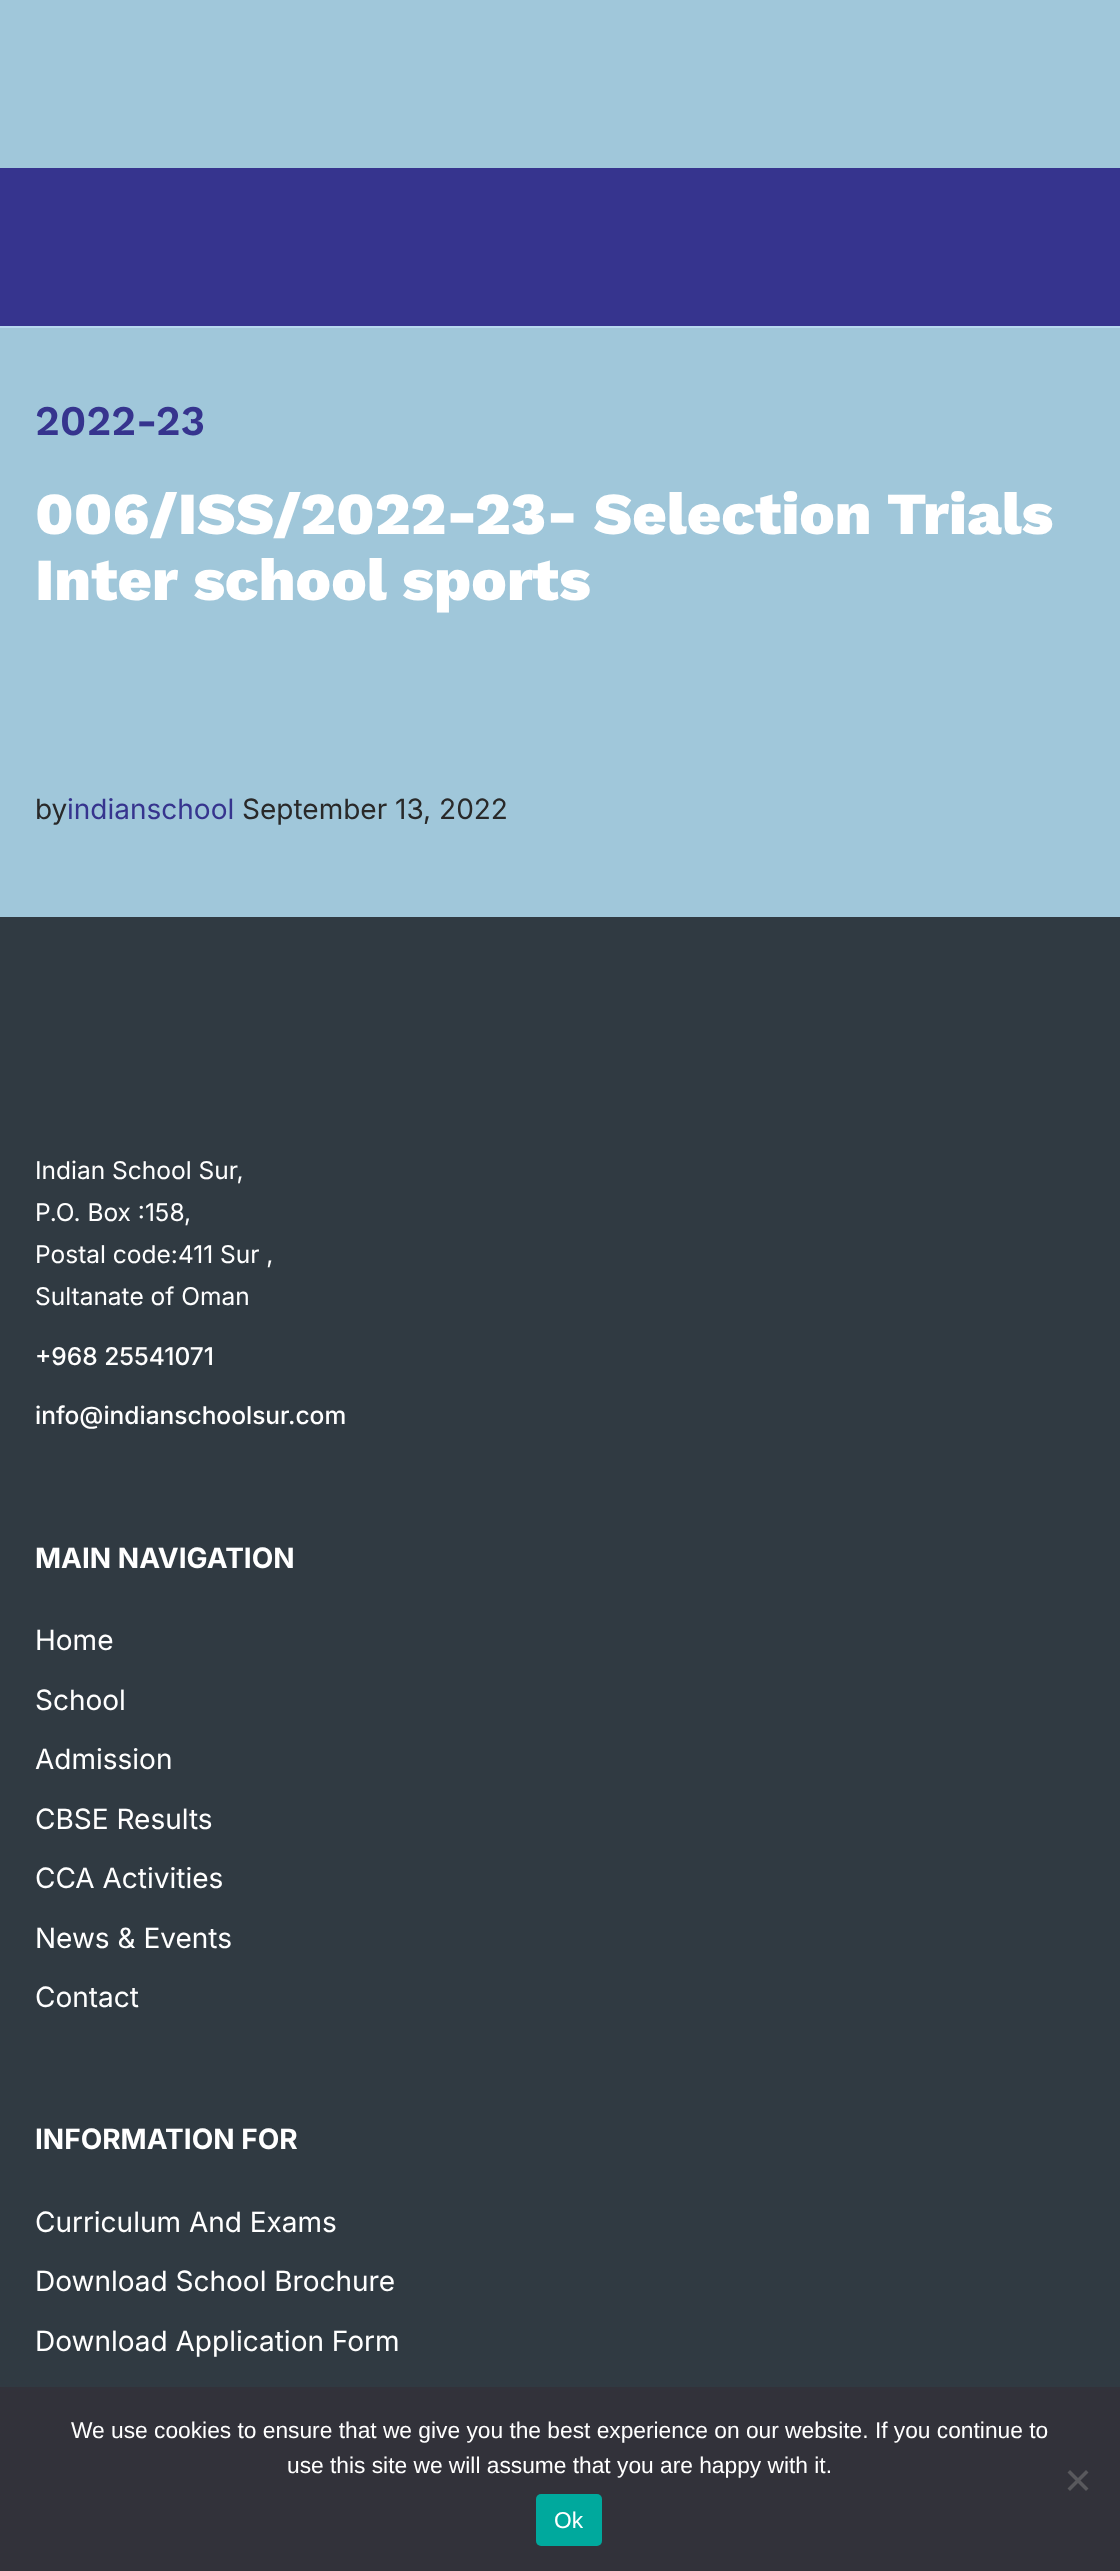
<svg xmlns="http://www.w3.org/2000/svg" width="1120" height="2571">
	<rect width="100%" height="100%" fill="#A0C7DA" />
	<rect x="0" y="168" width="1120" height="158" fill="#36348E" />
	<rect x="0" y="326" width="1120" height="2" fill="#B7D8EF" />
	<text x="35" y="435" font-family="Work Sans" font-size="42" font-weight="600" fill="#36348E">2022-23</text>
	<g font-family="Work Sans" font-size="59.5" font-weight="800" fill="#FFFFFF">
		<text x="35" y="534">006/ISS/2022-23- Selection Trials</text>
		<text x="35" y="600">Inter school sports</text>
	</g>
	<text x="35" y="819" font-family="Inter" font-size="28" fill="#292929">by</text>
	<text x="67" y="819" font-family="Inter" font-size="28" fill="#36348E">indianschool</text>
	<text x="242" y="819" font-family="Inter" font-size="28" fill="#292929">September 13, 2022</text>
	<rect x="0" y="917" width="1120" height="1470" fill="#303A42" />
	<g font-family="Inter" font-size="24.5" fill="#FFFFFF">
		<text x="35" y="1179">Indian School Sur,</text>
		<text x="35" y="1221">P.O. Box :158,</text>
		<text x="35" y="1263">Postal code:411 Sur ,</text>
		<text x="35" y="1305">Sultanate of Oman</text>
	</g>
	<g font-family="Inter" font-size="24.5" font-weight="500" fill="#FFFFFF">
		<text x="35" y="1365">+968 25541071</text>
		<text x="35" y="1424">info@indianschoolsur.com</text>
	</g>
	<text x="35" y="1568" font-family="Inter" font-size="28" font-weight="700" fill="#FFFFFF">MAIN NAVIGATION</text>
	<g font-family="Inter" font-size="28" fill="#FFFFFF">
		<text x="35" y="1650">Home</text>
		<text x="35" y="1710">School</text>
		<text x="35" y="1769">Admission</text>
		<text x="35" y="1829">CBSE Results</text>
		<text x="35" y="1888">CCA Activities</text>
		<text x="35" y="1948">News &amp; Events</text>
		<text x="35" y="2007">Contact</text>
	</g>
	<text x="35" y="2149" font-family="Inter" font-size="28" font-weight="700" fill="#FFFFFF">INFORMATION FOR</text>
	<g font-family="Inter" font-size="28" fill="#FFFFFF">
		<text x="35" y="2232">Curriculum And Exams</text>
		<text x="35" y="2291">Download School Brochure</text>
		<text x="35" y="2351">Download Application Form</text>
	</g>
	<rect x="0" y="2387" width="1120" height="184" fill="#32323A" />
	<g font-family="Liberation Sans" font-size="22.75" fill="#FFFFFF">
		<text x="71" y="2438">We use cookies to ensure that we give you the best experience on our website. If you continue to</text>
		<text x="287" y="2473">use this site we will assume that you are happy with it.</text>
	</g>
	<path d="M1086 2470L1088.5 2472.5L1070 2491L1067.5 2488.5Z" fill="#59595D" />
	<path d="M1067.5 2472.5L1070 2470L1088.5 2488.5L1086 2491Z" fill="#59595D" />
	<rect x="536" y="2494" width="66" height="52" rx="5" fill="#00A99D" />
	<text x="554" y="2528" font-family="Liberation Sans" font-size="22.75" fill="#FFFFFF">Ok</text>
</svg>
